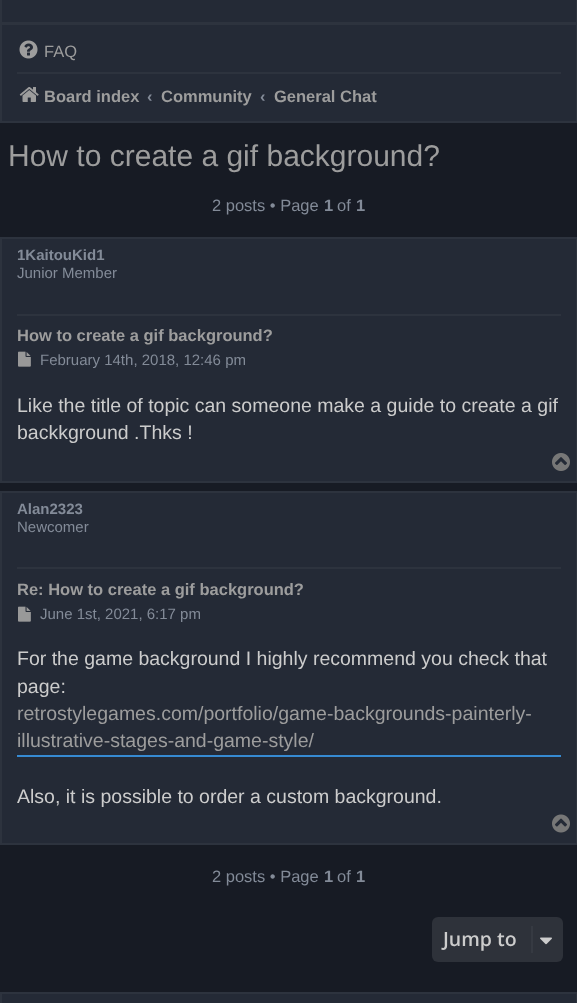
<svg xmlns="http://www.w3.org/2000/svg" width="577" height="1003">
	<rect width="100%" height="100%" fill="#171B24" />
	<rect x="1" y="-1" width="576" height="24" fill="#242A36" stroke="#2D333E" stroke-width="2" />
	<rect x="1" y="24" width="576" height="98" fill="#242A36" stroke="#2D333E" stroke-width="2" />
	<image x="19" y="40" width="19" height="19" href="assets/img1.png" />
	<text x="44" y="57" font-family="Liberation Sans" font-size="16.5" fill="#9D9D9D">FAQ</text>
	<rect x="17" y="72" width="544" height="2" fill="#2D333E" />
	<image x="19" y="87" width="20" height="15" href="assets/img2.png" />
	<text x="44" y="102" font-family="Liberation Sans" font-size="16.5" font-weight="700" fill="#9D9D9D">Board index</text>
	<text x="147" y="102" font-family="Liberation Sans" font-size="16.5" font-weight="700" fill="#838B98">‹</text>
	<text x="161" y="102" font-family="Liberation Sans" font-size="16.5" font-weight="700" fill="#9D9D9D">Community</text>
	<text x="260" y="102" font-family="Liberation Sans" font-size="16.5" font-weight="700" fill="#838B98">‹</text>
	<text x="274" y="102" font-family="Liberation Sans" font-size="16.5" font-weight="700" fill="#9D9D9D">General Chat</text>
	<text x="8" y="166" font-family="Liberation Sans" font-size="30" fill="#9D9D9D">How to create a gif background?</text>
	<text x="212" y="211" font-family="Liberation Sans" font-size="16.5" fill="#838B98">2 posts • Page</text>
	<text x="324" y="211" font-family="Liberation Sans" font-size="16.5" font-weight="700" fill="#838B98">1</text>
	<text x="337" y="211" font-family="Liberation Sans" font-size="16.5" fill="#838B98">of</text>
	<text x="356" y="211" font-family="Liberation Sans" font-size="16.5" font-weight="700" fill="#838B98">1</text>
	<rect x="1" y="238" width="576" height="244" fill="#242A36" stroke="#2D333E" stroke-width="2" />
	<rect x="17" y="314" width="544" height="2" fill="#2D333E" />
	<text x="17" y="260" font-family="Liberation Sans" font-size="15" font-weight="700" fill="#838B98">1KaitouKid1</text>
	<text x="17" y="278" font-family="Liberation Sans" font-size="15" fill="#838B98">Junior Member</text>
	<text x="17" y="341" font-family="Liberation Sans" font-size="16.5" font-weight="700" fill="#9D9D9D">How to create a gif background?</text>
	<image x="18" y="351" width="13" height="16" href="assets/img3.png" />
	<text x="40" y="365" font-family="Liberation Sans" font-size="15" fill="#838B98">February 14th, 2018, 12:46 pm</text>
	<g font-family="Liberation Sans" font-size="19.5" fill="#CCCCCC">
		<text x="17" y="412">Like the title of topic can someone make a guide to create a gif</text>
		<text x="17" y="439">backkground .Thks !</text>
	</g>
	<image x="552" y="453" width="18" height="18" href="assets/img4.png" />
	<rect x="1" y="492" width="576" height="352" fill="#242A36" stroke="#2D333E" stroke-width="2" />
	<rect x="17" y="567" width="544" height="2" fill="#2D333E" />
	<text x="17" y="514" font-family="Liberation Sans" font-size="15" font-weight="700" fill="#838B98">Alan2323</text>
	<text x="17" y="532" font-family="Liberation Sans" font-size="15" fill="#838B98">Newcomer</text>
	<text x="17" y="595" font-family="Liberation Sans" font-size="16.5" font-weight="700" fill="#9D9D9D">Re: How to create a gif background?</text>
	<image x="18" y="606" width="13" height="16" href="assets/img3.png" />
	<text x="40" y="619" font-family="Liberation Sans" font-size="15" fill="#838B98">June 1st, 2021, 6:17 pm</text>
	<g font-family="Liberation Sans" font-size="19.5" fill="#CCCCCC">
		<text x="17" y="665">For the game background I highly recommend you check that</text>
		<text x="17" y="693">page:</text>
	</g>
	<rect x="17" y="755" width="544" height="2" fill="#368AD2" />
	<g font-family="Liberation Sans" font-size="19.5" fill="#9D9D9D">
		<text x="17" y="720">retrostylegames.com/portfolio/game-backgrounds-painterly-</text>
		<text x="17" y="747">illustrative-stages-and-game-style/</text>
	</g>
	<text x="17" y="803" font-family="Liberation Sans" font-size="19.5" fill="#CCCCCC">Also, it is possible to order a custom background.</text>
	<image x="552" y="814" width="18" height="19" href="assets/img5.png" />
	<text x="212" y="882" font-family="Liberation Sans" font-size="16.5" fill="#838B98">2 posts • Page</text>
	<text x="324" y="882" font-family="Liberation Sans" font-size="16.5" font-weight="700" fill="#838B98">1</text>
	<text x="337" y="882" font-family="Liberation Sans" font-size="16.5" fill="#838B98">of</text>
	<text x="356" y="882" font-family="Liberation Sans" font-size="16.5" font-weight="700" fill="#838B98">1</text>
	<rect x="432" y="917" width="131" height="45" rx="6" fill="#2E323A" />
	<text x="443" y="946" font-family="Open Sans" font-size="19.5" font-weight="600" fill="#CCCCCC">Jump to</text>
	<rect x="531" y="926" width="2" height="27" fill="#363A42" />
	<image x="540" y="937" width="12" height="8" href="assets/img6.png" />
	<rect x="1" y="993" width="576" height="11" fill="#242A36" stroke="#2D333E" stroke-width="2" />
</svg>
